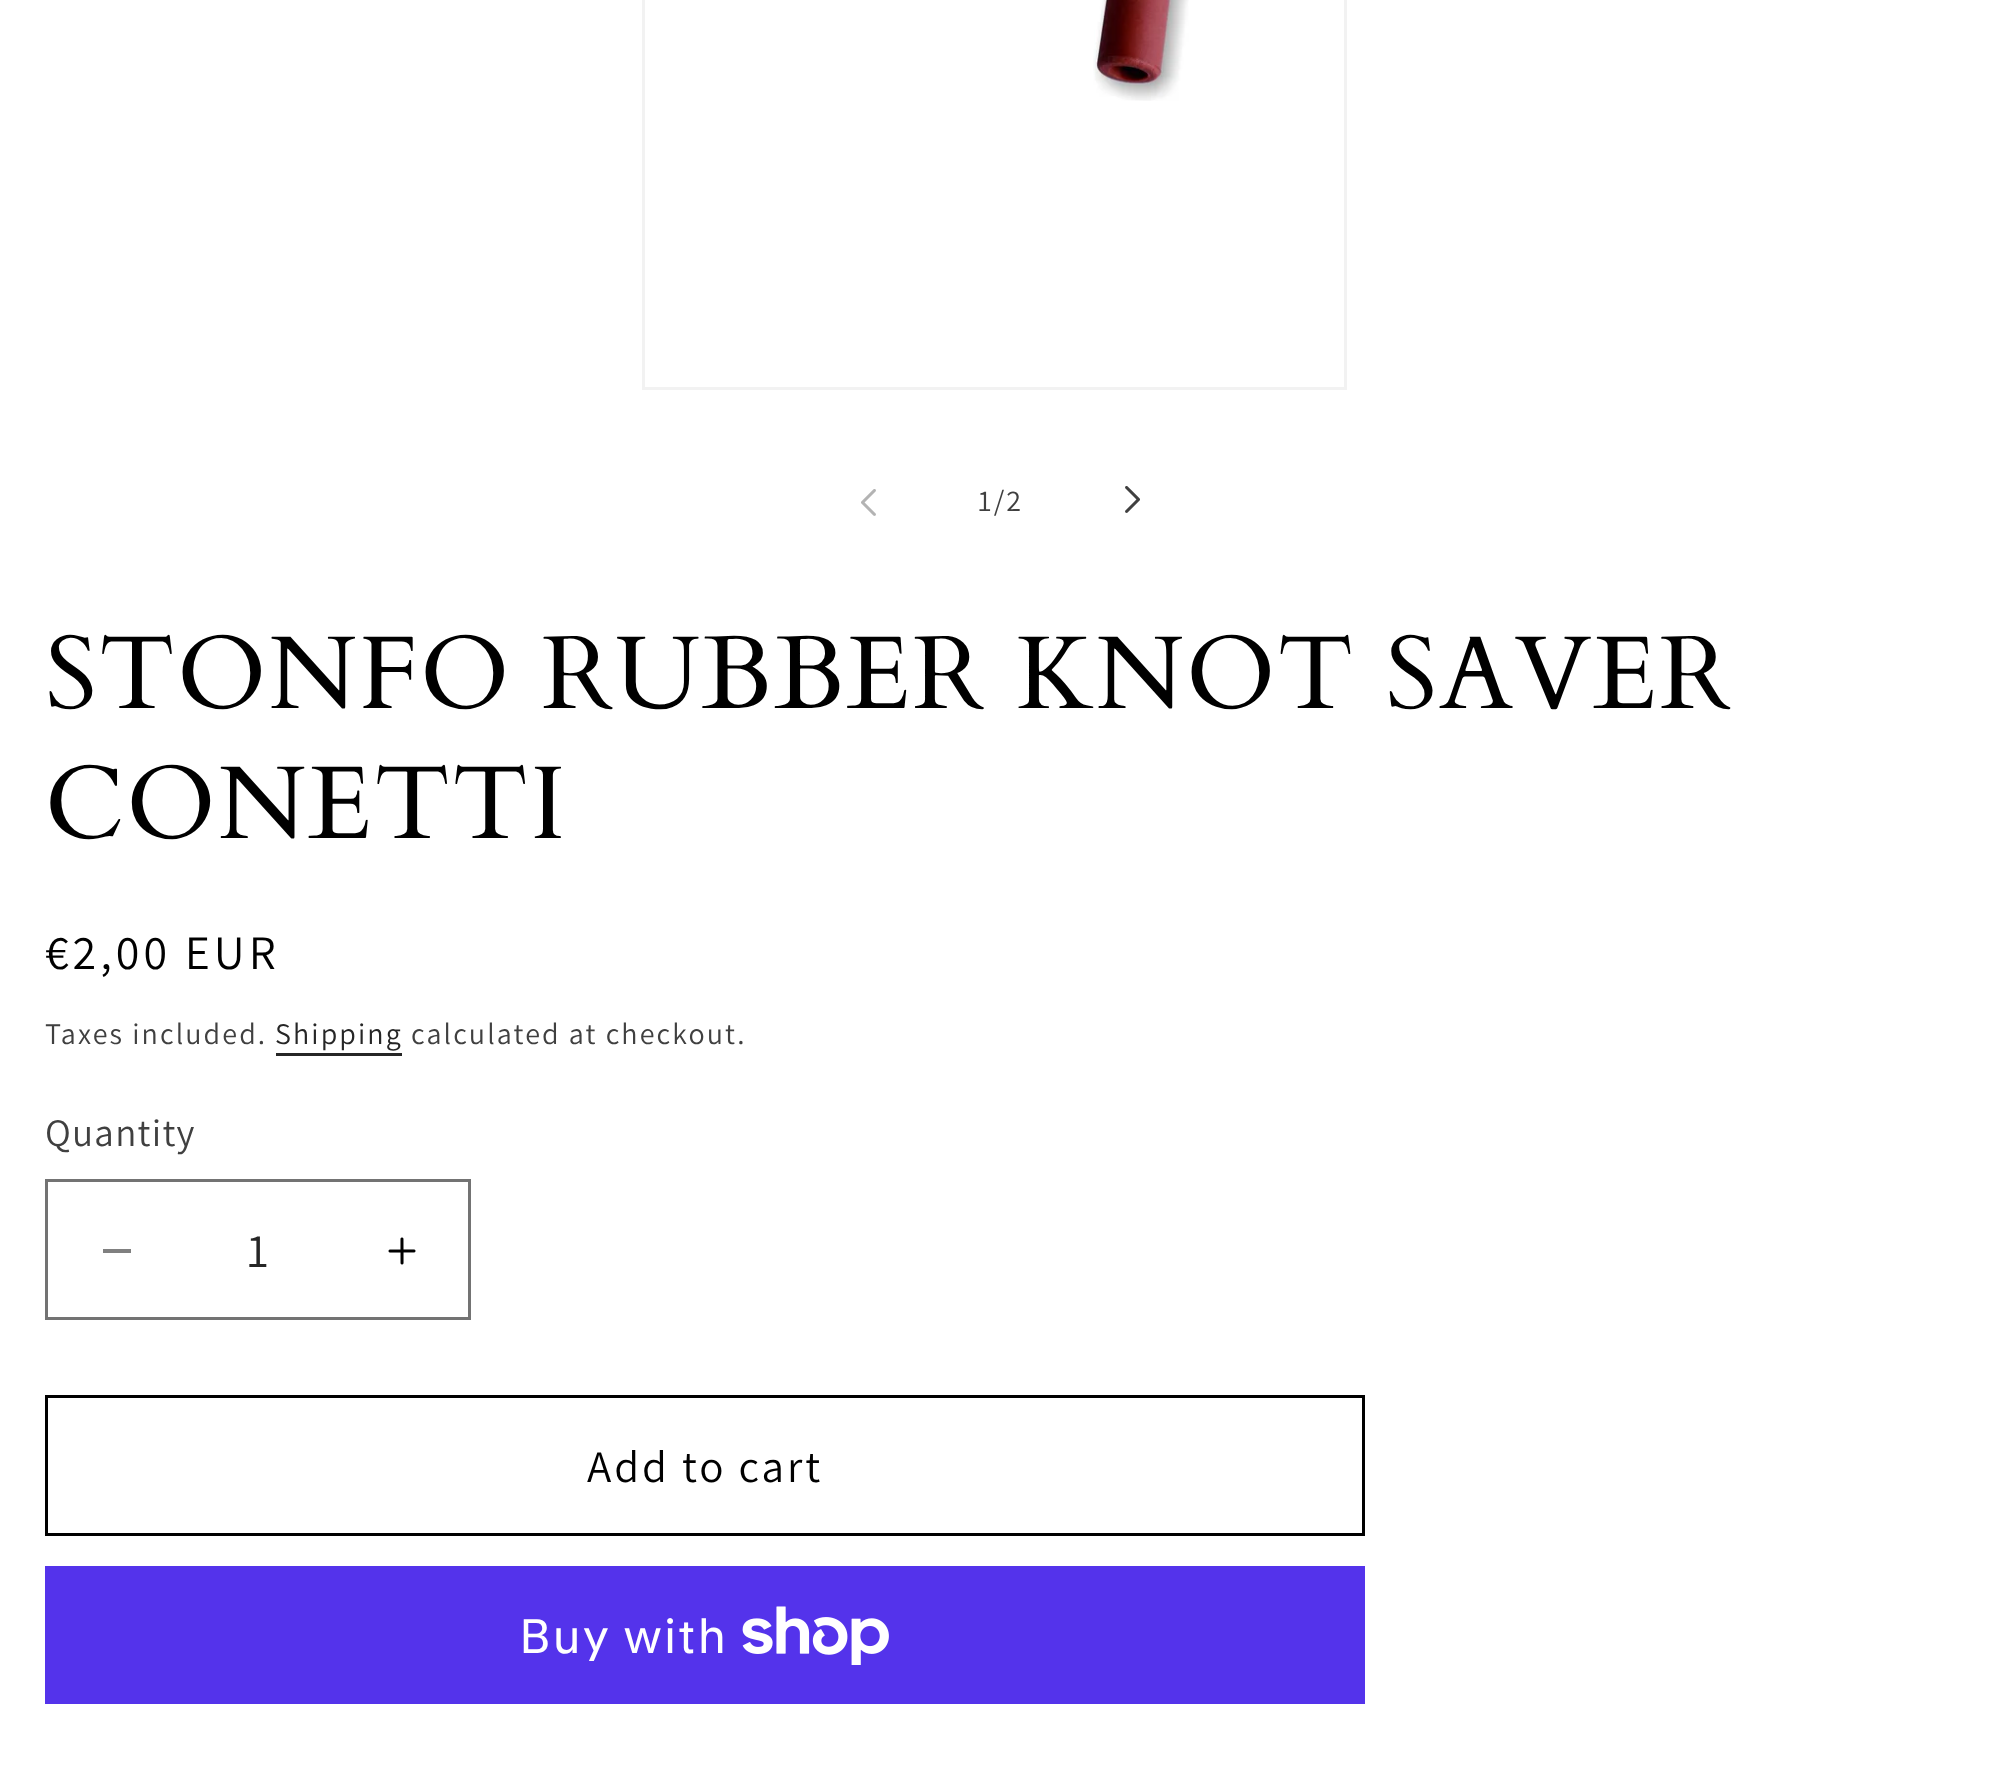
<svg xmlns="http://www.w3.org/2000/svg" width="1999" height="1767">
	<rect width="100%" height="100%" fill="#FFFFFF" />
	<rect x="643.5" y="-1.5" width="702" height="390" fill="none" stroke="#F2F2F2" stroke-width="3" />
	<image x="1093" y="0" width="96" height="101" href="assets/img1.png" />
	<image x="861" y="489" width="15" height="27" href="assets/img2.png" />
	<text x="978" y="511" font-family="Assistant" font-size="30" letter-spacing="2.1" fill="#404040">1/2</text>
	<image x="1125" y="486" width="15" height="27" href="assets/img3.png" />
	<g font-family="Cardo" font-size="103.5" letter-spacing="2.1" fill="#000000">
		<text x="45" y="708">STONFO RUBBER KNOT SAVER</text>
		<text x="45" y="838">CONETTI</text>
	</g>
	<text x="45" y="969" font-family="Assistant" font-size="48" letter-spacing="4" fill="#000000">€2,00 EUR</text>
	<text x="45" y="1044" font-family="Assistant" font-size="30" letter-spacing="2.1" fill="#404040">Taxes included.</text>
	<text x="275" y="1044" font-family="Assistant" font-size="30" letter-spacing="2.1" fill="#262626">Shipping</text>
	<rect x="276" y="1053" width="126" height="3" fill="#262626" />
	<text x="411" y="1044" font-family="Assistant" font-size="30" letter-spacing="2.1" fill="#404040">calculated at checkout.</text>
	<text x="45" y="1146" font-family="Assistant" font-size="39" letter-spacing="1.25" fill="#404040">Quantity</text>
	<rect x="103" y="1249" width="28" height="4" fill="#808080" />
	<image x="388" y="1237" width="28" height="28" href="assets/img4.png" />
	<rect x="46.5" y="1180.5" width="423" height="138" fill="none" stroke="#737373" stroke-width="3" />
	<text x="247" y="1267" font-family="Assistant" font-size="48" fill="#262626">1</text>
	<rect x="46.5" y="1396.5" width="1317" height="138" fill="none" stroke="#000000" stroke-width="3" />
	<text x="587" y="1482" font-family="Assistant" font-size="45" letter-spacing="3" fill="#000000">Add to cart</text>
	<rect x="45" y="1566" width="1320" height="138" fill="#5433EB" />
	<text x="519" y="1653" font-family="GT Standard" font-size="48" letter-spacing="1.75" fill="#FFFFFF">Buy with</text>
	<image x="742" y="1606" width="147" height="59" href="assets/img5.png" />
</svg>
